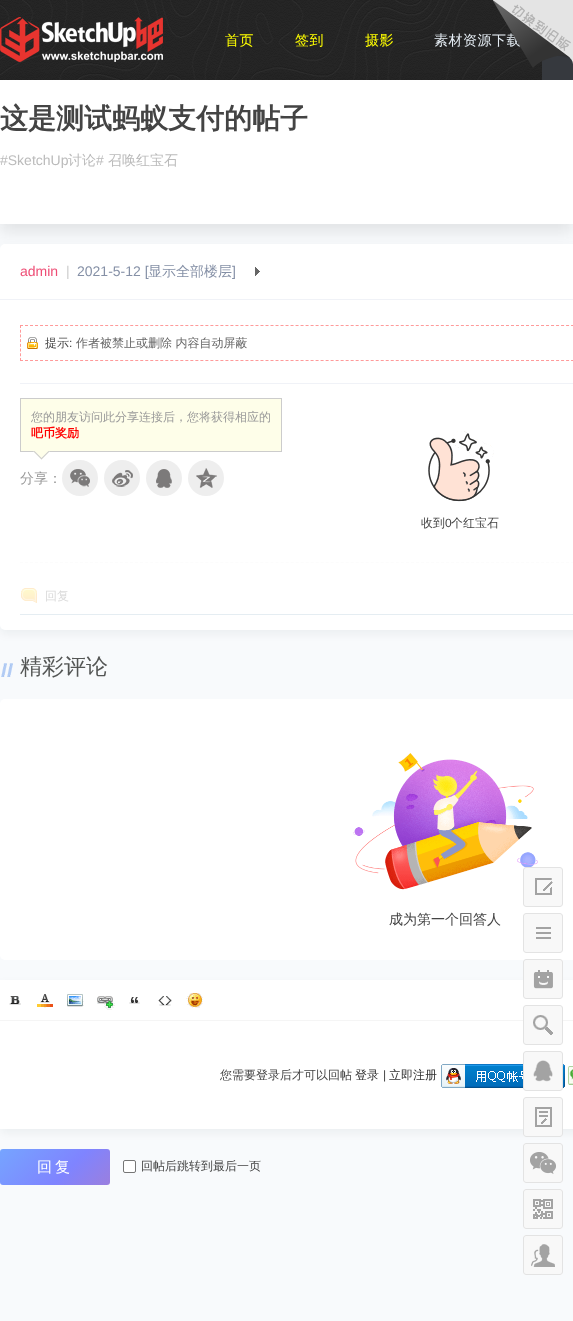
<svg xmlns="http://www.w3.org/2000/svg" width="573" height="1321">
	<defs>
		<linearGradient id="g1" gradientUnits="userSpaceOnUse" x1="92" y1="1204" x2="19" y2="1131"><stop offset="0" stop-color="#9B7EDE" /><stop offset="0.1" stop-color="#9480E6" /><stop offset="0.4" stop-color="#7F84FF" /><stop offset="1" stop-color="#76A4FF" /></linearGradient>
	</defs>
	<rect width="100%" height="100%" fill="#F8FAFC" />
	<image x="0" y="0" width="542" height="80" href="assets/img1.png" />
	<image x="0" y="17" width="163" height="45" href="assets/img2.png" />
	<g font-family="WenQuanYi Zen Hei" font-size="14" font-weight="500" letter-spacing="0.5" fill="#FFFF00">
		<text x="225" y="45">首页</text>
		<text x="295" y="45">签到</text>
		<text x="365" y="45">摄影</text>
	</g>
	<text x="434" y="45" font-family="WenQuanYi Zen Hei" font-size="14" font-weight="500" letter-spacing="0.5" fill="#E6EEF5">素材资源下载</text>
	<rect x="0" y="88" width="573" height="144" fill="#1C1F21" fill-opacity="0.1" filter="blur(8px)" />
	<rect x="542" y="55" width="31" height="25" fill="#36393E" />
	<image x="493" y="0" width="80" height="68" href="assets/img3.png" />
	<rect x="0" y="80" width="573" height="144" fill="#FFFFFF" />
	<text x="0" y="128" font-family="WenQuanYi Zen Hei" font-size="28" font-weight="700" fill="#444444">这是测试蚂蚁支付的帖子</text>
	<text x="0" y="165" font-family="Liberation Sans" font-size="14" fill="#BBBBBB">#SketchUp</text>
	<text x="68" y="165" font-family="WenQuanYi Zen Hei" font-size="14" font-weight="500" fill="#BBBBBB">讨论</text>
	<text x="96" y="165" font-family="Liberation Sans" font-size="14" fill="#BBBBBB">#</text>
	<text x="108" y="165" font-family="WenQuanYi Zen Hei" font-size="14" font-weight="500" fill="#BBBBBB">召唤红宝石</text>
	<rect x="0" y="248" width="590" height="386" rx="5" fill="#07111B" fill-opacity="0.05" filter="blur(4px)" />
	<rect x="0" y="244" width="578" height="386" rx="5" fill="#FFFFFF" />
	<rect x="0" y="299" width="573" height="1" fill="#F0F2F7" />
	<text x="20" y="276" font-family="Liberation Sans" font-size="14" fill="#EE4D75">admin</text>
	<text x="66" y="276" font-family="Liberation Sans" font-size="14" fill="#CCCCCC">|</text>
	<text x="77" y="276" font-family="Liberation Sans" font-size="14" fill="#8590A6">2021-5-12 [</text>
	<text x="148" y="276" font-family="WenQuanYi Zen Hei" font-size="14" font-weight="500" fill="#8590A6">显示全部楼层</text>
	<text x="232" y="276" font-family="Liberation Sans" font-size="14" fill="#8590A6">]</text>
	<image x="255" y="267" width="5" height="9" href="assets/img4.png" />
	<image x="27" y="337" width="11" height="12" href="assets/img5.png" />
	<path d="M20 325.5H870" fill="none" stroke="#FF9A9A" stroke-dasharray="3 2.01" />
	<path d="M20 360.5H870" fill="none" stroke="#FF9A9A" stroke-dasharray="3 2.01" />
	<path d="M20.5 325V361" fill="none" stroke="#FF9A9A" stroke-dasharray="3 1.71" />
	<text x="45" y="347" font-family="WenQuanYi Zen Hei" font-size="12" font-weight="500" fill="#444444">提示</text>
	<text x="69" y="347" font-family="Liberation Sans" font-size="12" fill="#444444">:</text>
	<text x="76" y="347" font-family="WenQuanYi Zen Hei" font-size="12" font-weight="500" fill="#666666">作者被禁止或删除 内容自动屏蔽</text>
	<rect x="20" y="383" width="553" height="1" fill="#F0F2F7" />
	<rect x="20.5" y="398.5" width="261" height="53" fill="#FEFEE9" stroke="#CCCCCC" />
	<text x="31" y="421" font-family="WenQuanYi Zen Hei" font-size="12" font-weight="500" fill="#999999">您的朋友访问此分享连接后，您将获得相应的</text>
	<text x="31" y="437" font-family="WenQuanYi Zen Hei" font-size="12" font-weight="700" fill="#FF0000">吧币奖励</text>
	<path d="M49.5 451.5L41.5 459.5L33.5 451.5L41.5 443.5Z" fill="#FEFEE9" />
	<path d="M49.5 451.5L41.5 459.5L41 458.5L48.5 451Z" fill="#CCCCCC" />
	<path d="M42 458.5L41.5 459.5L33.5 451.5L34.5 451Z" fill="#CCCCCC" />
	<text x="20" y="483" font-family="WenQuanYi Zen Hei" font-size="14" font-weight="500" fill="#999999">分享：</text>
	<circle cx="80" cy="478" r="18" fill="#EEEEEE" />
	<image x="70" y="469" width="20" height="18" href="assets/img6.png" />
	<circle cx="122" cy="478" r="18" fill="#EEEEEE" />
	<image x="112" y="470" width="21" height="17" href="assets/img7.png" />
	<circle cx="164" cy="478" r="18" fill="#EEEEEE" />
	<image x="156" y="469" width="16" height="19" href="assets/img8.png" />
	<circle cx="206" cy="478" r="18" fill="#EEEEEE" />
	<image x="196" y="468" width="21" height="20" href="assets/img9.png" />
	<image x="428" y="431" width="66" height="71" href="assets/img10.png" />
	<text x="421" y="527" font-family="WenQuanYi Zen Hei" font-size="12" font-weight="500" fill="#444444">收到</text>
	<text x="445" y="527" font-family="Liberation Sans" font-size="12" fill="#444444">0</text>
	<text x="451" y="527" font-family="WenQuanYi Zen Hei" font-size="12" font-weight="500" fill="#444444">个红宝石</text>
	<path d="M20 562.5H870" fill="none" stroke="#FCFCFC" stroke-dasharray="3 2.01" />
	<image x="21" y="588" width="16" height="15" href="assets/img11.png" />
	<text x="45" y="600" font-family="WenQuanYi Zen Hei" font-size="12" font-weight="500" fill="#DADADA">回复</text>
	<rect x="20" y="614" width="553" height="1" fill="#E5EDF2" />
	<image x="1" y="663" width="12" height="14" href="assets/img12.png" />
	<text x="20" y="674" font-family="WenQuanYi Zen Hei" font-size="22" font-weight="500" fill="#545655">精彩评论</text>
	<rect x="0" y="699" width="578" height="261" rx="5" fill="#FFFFFF" />
	<image x="353" y="753" width="185" height="137" href="assets/img13.png" />
	<text x="389" y="924" font-family="WenQuanYi Zen Hei" font-size="14" font-weight="500" fill="#444444">成为第一个回答人</text>
	<rect x="0" y="984" width="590" height="149" rx="5" fill="#07111B" fill-opacity="0.05" filter="blur(4px)" />
	<rect x="0" y="980" width="573" height="40" fill="#FFFFFF" />
	<rect x="0" y="1020" width="573" height="1" fill="#F5F5F5" />
	<image x="9" y="996" width="12" height="9" href="assets/img14.png" />
	<image x="37" y="994" width="16" height="14" href="assets/img15.png" />
	<image x="67" y="994" width="17" height="13" href="assets/img16.png" />
	<image x="97" y="996" width="18" height="14" href="assets/img17.png" />
	<image x="129" y="997" width="11" height="7" href="assets/img18.png" />
	<image x="158" y="996" width="14" height="10" href="assets/img19.png" />
	<image x="186" y="993" width="17" height="15" href="assets/img20.png" />
	<rect x="0" y="1021" width="573" height="108" fill="#FFFFFF" />
	<text x="220" y="1079" font-family="WenQuanYi Zen Hei" font-size="12" font-weight="500" fill="#444444">您需要登录后才可以回帖</text>
	<text x="355" y="1079" font-family="WenQuanYi Zen Hei" font-size="12" font-weight="500" fill="#333333">登录</text>
	<text x="383" y="1079" font-family="Liberation Sans" font-size="12" fill="#444444">|</text>
	<text x="389" y="1079" font-family="WenQuanYi Zen Hei" font-size="12" font-weight="500" fill="#333333">立即注册</text>
	<image x="441" y="1064" width="124" height="24" href="assets/img21.png" />
	<image x="568" y="1066" width="5" height="19" href="assets/img22.png" />
	<rect x="0" y="1149" width="110" height="36" rx="3" fill="url(#g1)" />
	<text x="37" y="1172" font-family="WenQuanYi Zen Hei" font-size="15" font-weight="500" letter-spacing="3" fill="#FFFFFF">回复</text>
	<rect x="123.5" y="1160.5" width="12" height="12" rx="1.5" fill="#FFFFFF" stroke="#767676" />
	<text x="141" y="1170" font-family="WenQuanYi Zen Hei" font-size="12" font-weight="500" fill="#444444">回帖后跳转到最后一页</text>
	<image x="523" y="867" width="40" height="40" href="assets/img23.png" />
	<image x="523" y="913" width="40" height="40" href="assets/img24.png" />
	<image x="523" y="959" width="40" height="40" href="assets/img25.png" />
	<image x="523" y="1005" width="40" height="40" href="assets/img26.png" />
	<image x="523" y="1051" width="40" height="40" href="assets/img27.png" />
	<image x="523" y="1097" width="40" height="40" href="assets/img28.png" />
	<image x="523" y="1143" width="40" height="40" href="assets/img29.png" />
	<image x="523" y="1189" width="40" height="40" href="assets/img30.png" />
	<image x="523" y="1235" width="40" height="40" href="assets/img31.png" />
</svg>
